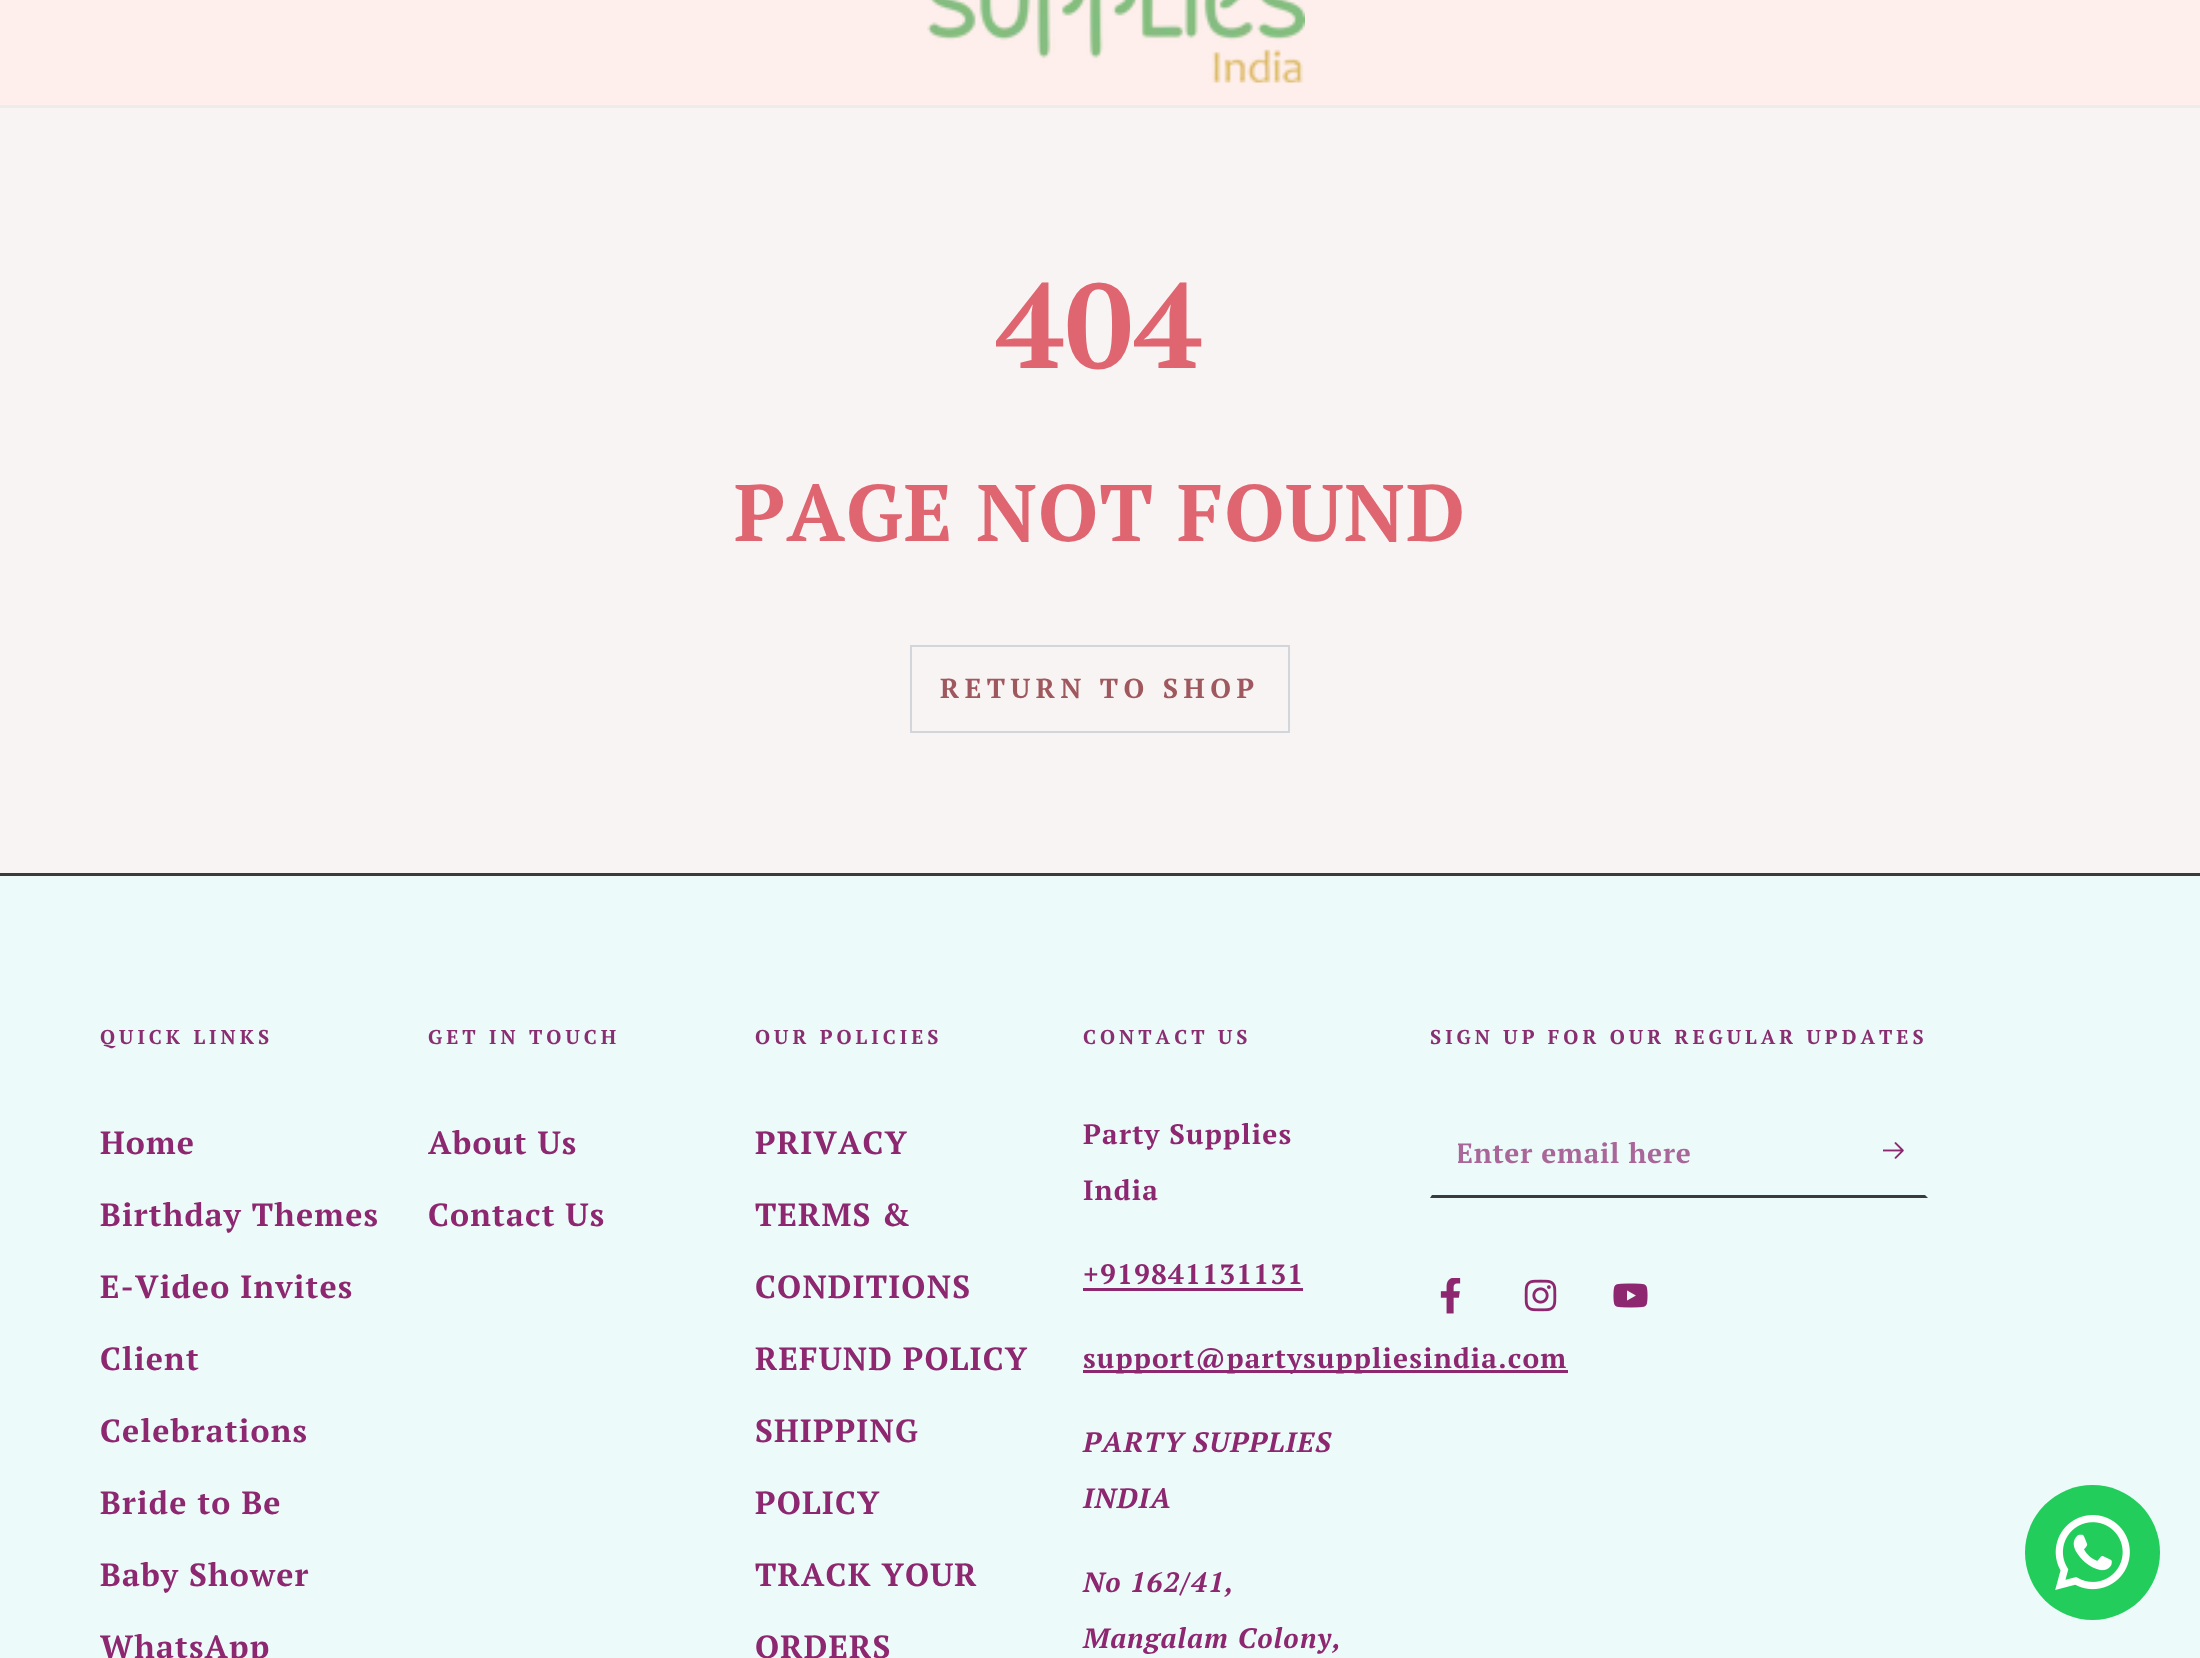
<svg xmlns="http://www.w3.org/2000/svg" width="2200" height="1658">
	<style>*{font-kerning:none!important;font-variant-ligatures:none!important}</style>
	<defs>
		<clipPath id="clip1"><rect x="1458" y="1133" width="467" height="37" /></clipPath>
	</defs>
	<rect width="100%" height="100%" fill="#F9F4F4" />
	<rect x="0" y="105" width="2200" height="3" fill="#EDEBEC" />
	<rect x="0" y="0" width="2200" height="105" fill="#FEEFEC" />
	<image x="927" y="0" width="378" height="83" href="assets/img1.png" />
	<text x="996" y="368" font-family="PT Serif" font-size="120" font-weight="700" letter-spacing="1.2" fill="#DF6671">404</text>
	<text x="734" y="541" font-family="PT Serif" font-size="80" font-weight="700" letter-spacing="1.2" fill="#DF6671">PAGE NOT</text>
	<text x="1177" y="541" font-family="PT Serif" font-size="80" font-weight="700" letter-spacing="1.2" fill="#DF6671">FOUND</text>
	<rect x="911" y="646" width="378" height="86" fill="none" stroke="#D2D5D9" stroke-width="2" />
	<text x="940" y="698" font-family="PT Serif" font-size="27.5" font-weight="700" letter-spacing="5.5" fill="#9F585E">RETURN TO SHOP</text>
	<rect x="0" y="876" width="2200" height="782" fill="#ECFAF9" />
	<rect x="0" y="873" width="2200" height="3" fill="#3B3B3B" />
	<text x="100" y="1044" font-family="PT Serif" font-size="20" font-weight="700" letter-spacing="4" fill="#892F71">QUICK LINKS</text>
	<g font-family="PT Serif" font-size="32" font-weight="700" letter-spacing="1.2" fill="#8C2770">
		<text x="100" y="1154">Home</text>
		<text x="100" y="1226">Birthday Themes</text>
		<text x="100" y="1298">E-Video Invites</text>
		<text x="100" y="1370">Client</text>
		<text x="100" y="1442">Celebrations</text>
		<text x="100" y="1514">Bride to Be</text>
		<text x="100" y="1586">Baby Shower</text>
		<text x="100" y="1658">WhatsApp</text>
	</g>
	<text x="428" y="1044" font-family="PT Serif" font-size="20" font-weight="700" letter-spacing="4" fill="#892F71">GET IN TOUCH</text>
	<g font-family="PT Serif" font-size="32" font-weight="700" letter-spacing="1.2" fill="#8C2770">
		<text x="428" y="1154">About Us</text>
		<text x="428" y="1226">Contact Us</text>
	</g>
	<text x="755" y="1044" font-family="PT Serif" font-size="20" font-weight="700" letter-spacing="4" fill="#892F71">OUR POLICIES</text>
	<g font-family="PT Serif" font-size="32" font-weight="700" letter-spacing="1.2" fill="#8C2770">
		<text x="755" y="1154">PRIVACY</text>
		<text x="755" y="1226">TERMS &amp;</text>
		<text x="755" y="1298">CONDITIONS</text>
		<text x="755" y="1370">REFUND POLICY</text>
		<text x="755" y="1442">SHIPPING</text>
		<text x="755" y="1514">POLICY</text>
		<text x="755" y="1586">TRACK YOUR</text>
		<text x="755" y="1658">ORDERS</text>
	</g>
	<text x="1083" y="1044" font-family="PT Serif" font-size="20" font-weight="700" letter-spacing="4" fill="#892F71">CONTACT US</text>
	<g font-family="PT Serif" font-size="28" font-weight="700" letter-spacing="1.2" fill="#8C2770">
		<text x="1083" y="1144">Party Supplies</text>
		<text x="1083" y="1200">India</text>
		<text x="1083" y="1284">+919841131131</text>
	</g>
	<rect x="1083" y="1288" width="220" height="3" fill="#8C2770" />
	<rect x="1083" y="1370" width="485" height="3" fill="#8C2770" />
	<text x="1083" y="1368" font-family="PT Serif" font-size="28" font-weight="700" letter-spacing="1.2" fill="#8C2770">support@partysuppliesindia.com</text>
	<g font-family="PT Serif" font-size="28" font-weight="700" font-style="italic" letter-spacing="1.2" fill="#8C2770">
		<text x="1083" y="1452" word-spacing="-1">PARTY SUPPLIES</text>
		<text x="1083" y="1508">INDIA</text>
		<text x="1083" y="1592" word-spacing="-1">No 162/41,</text>
		<text x="1083" y="1648">Mangalam Colony,</text>
	</g>
	<text x="1430" y="1044" font-family="PT Serif" font-size="20" font-weight="700" letter-spacing="4" fill="#892F71">SIGN UP FOR OUR REGULAR UPDATES</text>
	<path d="M1928 1198H1430L1432 1195H1925Z" fill="#3B3B3B" />
	<g clip-path="url(#clip1)">
		<text x="1456" y="1163" font-family="PT Serif" font-size="28" font-weight="700" letter-spacing="0.75" fill="#A96699">Enter email here</text>
	</g>
	<image x="1883" y="1142" width="21" height="17" href="assets/img2.png" />
	<image x="1440" y="1278" width="21" height="36" href="assets/img3.png" />
	<image x="1524" y="1279" width="33" height="33" href="assets/img4.png" />
	<image x="1613" y="1283" width="35" height="25" href="assets/img5.png" />
	<circle cx="2092.5" cy="1552.5" r="67.5" fill="#22CD5B" />
	<image x="2055" y="1515" width="75" height="75" href="assets/img6.png" />
</svg>
